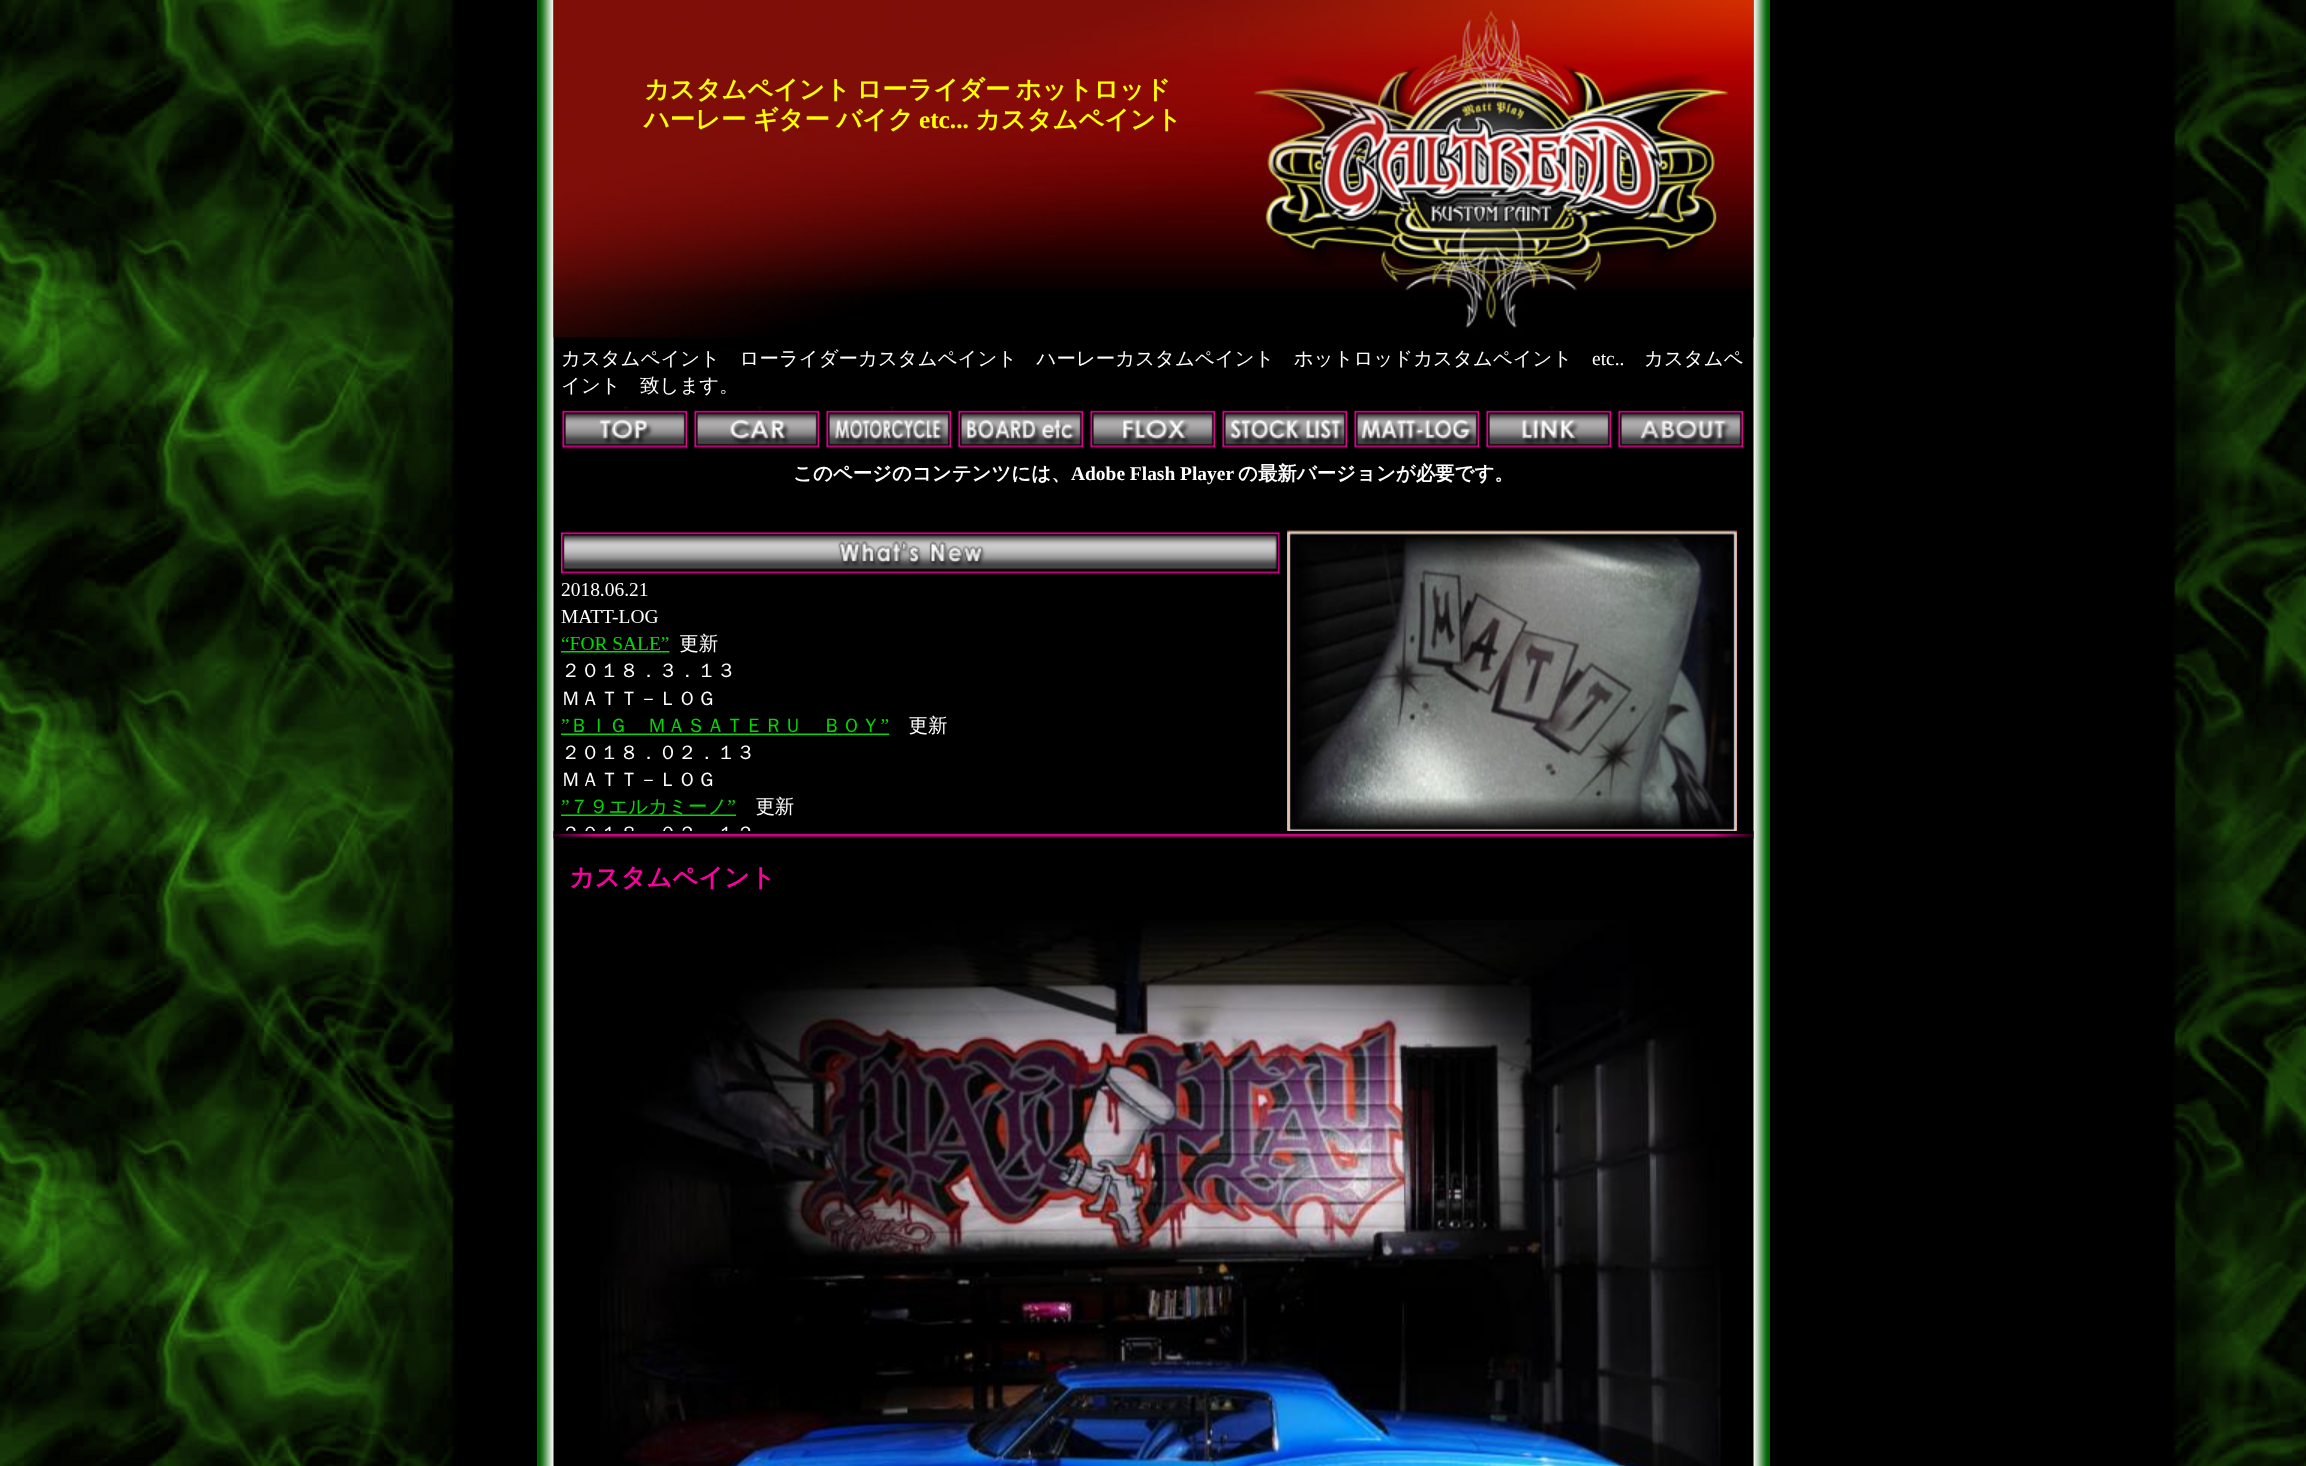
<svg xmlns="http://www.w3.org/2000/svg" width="2306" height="1466">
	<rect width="100%" height="100%" fill="#FFFFFF" />
	<image x="0" y="0" width="2306" height="1466" href="assets/img1.png" />
	<image x="537" y="0" width="1233" height="1466" href="assets/img2.png" />
	<image x="553" y="0" width="1201" height="338" href="assets/img3.png" />
	<g font-family="WenQuanYi Zen Hei" font-size="25.25" font-weight="700" fill="#FFFF00">
		<text x="644" y="98" word-spacing="-2">カスタムペイント ローライダー ホットロッド</text>
		<text x="644" y="128" word-spacing="-1">ハーレー ギター バイク</text>
	</g>
	<text x="919" y="128" font-family="Liberation Serif" font-size="25.25" font-weight="700" fill="#FFFF00">etc...</text>
	<text x="975" y="128" font-family="WenQuanYi Zen Hei" font-size="25.25" font-weight="700" fill="#FFFF00">カスタムペイント</text>
	<text x="561" y="365" font-family="WenQuanYi Zen Hei" font-size="19.45" font-weight="500" fill="#FFFFFF">カスタムペイント　ローライダーカスタムペイント　ハーレーカスタムペイント　ホットロッドカスタムペイント</text>
	<text x="1592" y="365" font-family="Liberation Serif" font-size="19.45" fill="#FFFFFF">etc..</text>
	<g font-family="WenQuanYi Zen Hei" font-size="19.45" font-weight="500" fill="#FFFFFF">
		<text x="1644" y="365">カスタムペ</text>
		<text x="561" y="392">イント　致します。</text>
	</g>
	<image x="562" y="406" width="125" height="43" href="assets/img4.png" />
	<image x="694" y="406" width="125" height="43" href="assets/img5.png" />
	<image x="826" y="406" width="125" height="43" href="assets/img6.png" />
	<image x="958" y="406" width="125" height="43" href="assets/img7.png" />
	<image x="1090" y="406" width="125" height="43" href="assets/img8.png" />
	<image x="1222" y="406" width="125" height="43" href="assets/img9.png" />
	<image x="1354" y="406" width="125" height="43" href="assets/img10.png" />
	<image x="1486" y="406" width="125" height="43" href="assets/img11.png" />
	<image x="1618" y="406" width="125" height="43" href="assets/img12.png" />
	<text x="793" y="480" font-family="WenQuanYi Zen Hei" font-size="19.45" font-weight="700" fill="#FFFFFF">このページのコンテンツには、</text>
	<text x="1071" y="480" font-family="Liberation Serif" font-size="19.45" font-weight="700" fill="#FFFFFF">Adobe Flash Player</text>
	<text x="1238" y="480" font-family="WenQuanYi Zen Hei" font-size="19.45" font-weight="700" fill="#FFFFFF">の最新バージョンが必要です。</text>
	<image x="561" y="532" width="719" height="43" href="assets/img13.png" />
	<image x="561" y="583" width="386" height="248" href="assets/img14.png" />
	<image x="1287" y="530" width="450" height="301" href="assets/img15.png" />
	<image x="553" y="831" width="1201" height="8" href="assets/img16.png" />
	<text x="569" y="886" font-family="WenQuanYi Zen Hei" font-size="25.25" font-weight="700" fill="#FB00A0">カスタムペイント</text>
	<image x="600" y="920" width="1121" height="546" href="assets/img17.png" />
</svg>
